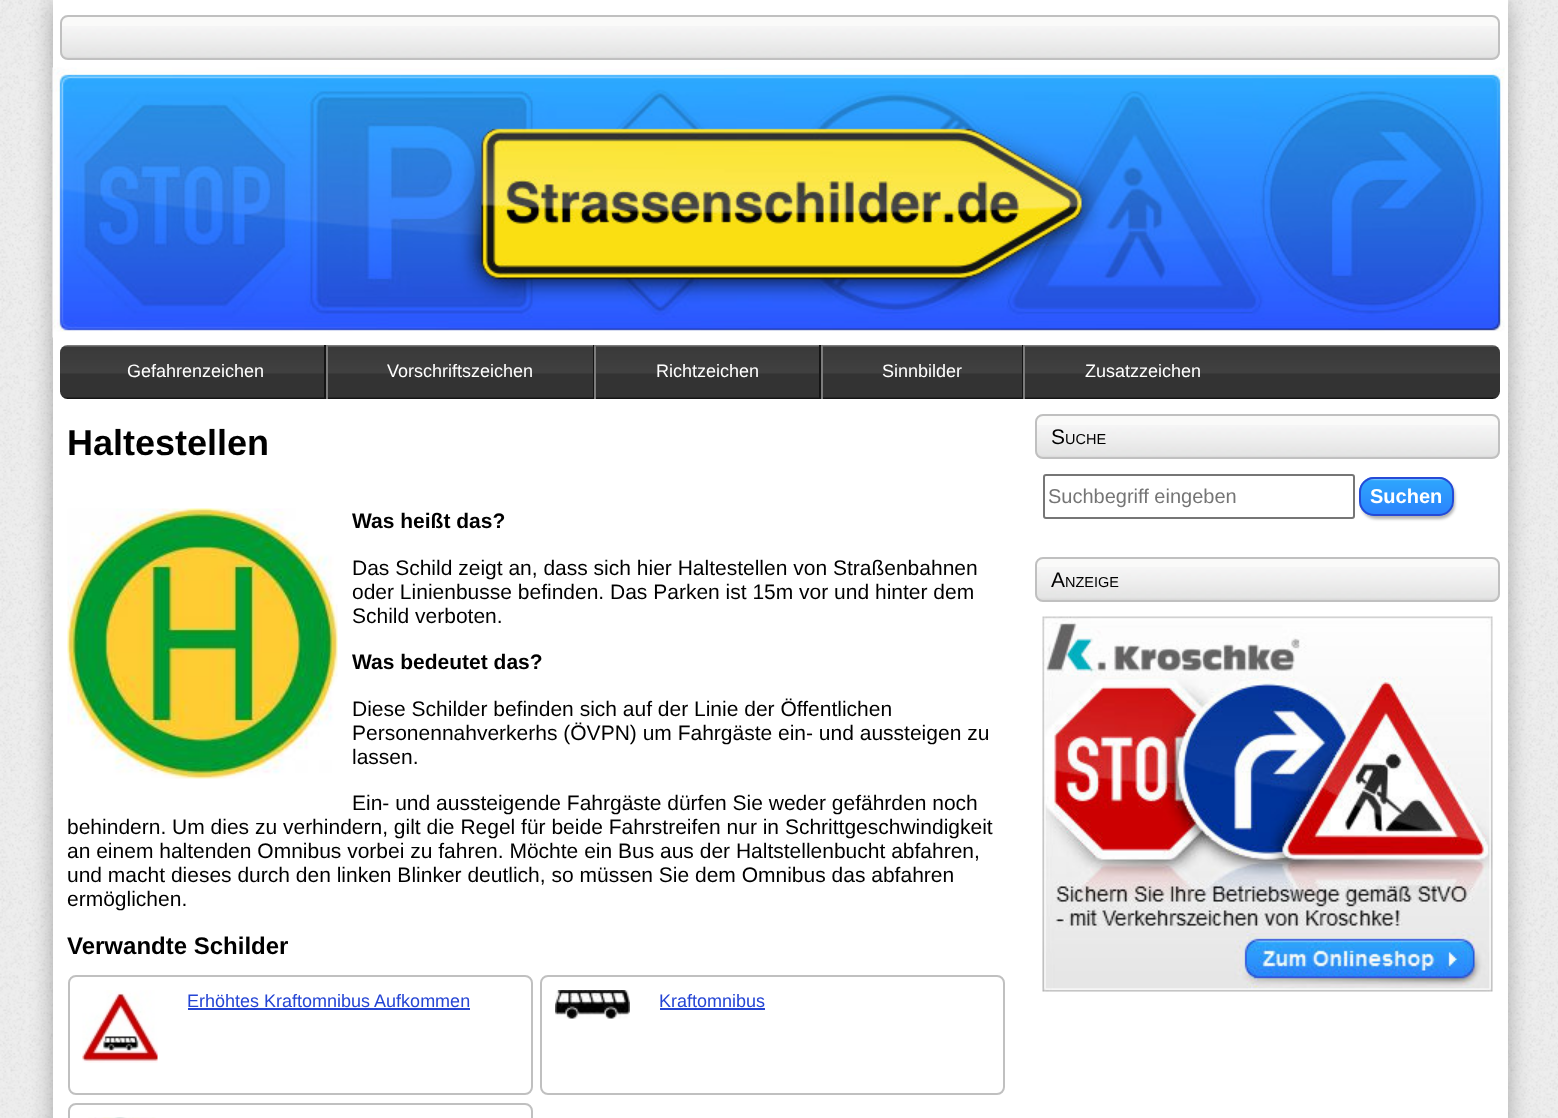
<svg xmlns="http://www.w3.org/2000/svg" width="1558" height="1118">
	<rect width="100%" height="100%" fill="#FFFFFF" />
	<image x="0" y="0" width="1558" height="1118" href="assets/img1.png" />
	<rect x="53" y="3" width="1455" height="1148" fill="#000000" fill-opacity="0.3" filter="blur(11px)" />
	<rect x="53" y="0" width="1455" height="1118" fill="#FFFFFF" />
	<rect x="60" y="15" width="1440" height="45" rx="8" fill="#FAFAF9" />
	<image x="60" y="26" width="1440" height="33" href="assets/img2.png" />
	<rect x="61" y="16" width="1438" height="43" rx="7" fill="none" stroke="#C0C0C0" stroke-width="2" />
	<image x="52" y="67" width="1453" height="271" href="assets/img3.png" />
	<image x="60" y="345" width="1440" height="54" href="assets/img4.png" />
	<rect x="324" y="345" width="2" height="54" fill="#141414" />
	<text x="127" y="377" font-family="Liberation Sans" font-size="18" fill="#FFFFFF">Gefahrenzeichen</text>
	<rect x="593" y="345" width="1" height="54" fill="#141414" />
	<rect x="326" y="345" width="2" height="54" fill="#7C7C7C" />
	<text x="387" y="377" font-family="Liberation Sans" font-size="18" fill="#FFFFFF">Vorschriftszeichen</text>
	<rect x="819" y="345" width="2" height="54" fill="#141414" />
	<rect x="594" y="345" width="2" height="54" fill="#7C7C7C" />
	<text x="656" y="377" font-family="Liberation Sans" font-size="18" fill="#FFFFFF">Richtzeichen</text>
	<rect x="1022" y="345" width="1" height="54" fill="#141414" />
	<rect x="821" y="345" width="2" height="54" fill="#7C7C7C" />
	<text x="882" y="377" font-family="Liberation Sans" font-size="18" fill="#FFFFFF">Sinnbilder</text>
	<rect x="1023" y="345" width="2" height="54" fill="#7C7C7C" />
	<text x="1085" y="377" font-family="Liberation Sans" font-size="18" fill="#FFFFFF">Zusatzzeichen</text>
	<text x="67" y="455" font-family="Liberation Sans" font-size="36" font-weight="700" fill="#000000">Haltestellen</text>
	<image x="67" y="508" width="271" height="271" href="assets/img5.png" />
	<text x="352" y="528" font-family="Liberation Sans" font-size="21" font-weight="700" fill="#000000">Was heißt das?</text>
	<g font-family="Liberation Sans" font-size="21" fill="#000000">
		<text x="352" y="575">Das Schild zeigt an, dass sich hier Haltestellen von Straßenbahnen</text>
		<text x="352" y="599">oder Linienbusse befinden. Das Parken ist 15m vor und hinter dem</text>
		<text x="352" y="623">Schild verboten.</text>
	</g>
	<text x="352" y="669" font-family="Liberation Sans" font-size="21" font-weight="700" fill="#000000">Was bedeutet das?</text>
	<g font-family="Liberation Sans" font-size="21" fill="#000000">
		<text x="352" y="716">Diese Schilder befinden sich auf der Linie der Öffentlichen</text>
		<text x="352" y="740">Personennahverkerhs (ÖVPN) um Fahrgäste ein- und aussteigen zu</text>
		<text x="352" y="764">lassen.</text>
		<text x="352" y="810">Ein- und aussteigende Fahrgäste dürfen Sie weder gefährden noch</text>
		<text x="67" y="834">behindern. Um dies zu verhindern, gilt die Regel für beide Fahrstreifen nur in Schrittgeschwindigkeit</text>
		<text x="67" y="858">an einem haltenden Omnibus vorbei zu fahren. Möchte ein Bus aus der Haltstellenbucht abfahren,</text>
		<text x="67" y="882">und macht dieses durch den linken Blinker deutlich, so müssen Sie dem Omnibus das abfahren</text>
		<text x="67" y="906">ermöglichen.</text>
	</g>
	<text x="67" y="954" font-family="Liberation Sans" font-size="24" font-weight="700" fill="#000000">Verwandte Schilder</text>
	<rect x="69" y="976" width="463" height="118" rx="7" fill="none" stroke="#C0C0C0" stroke-width="2" />
	<image x="82" y="990" width="76" height="73" href="assets/img6.png" />
	<text x="187" y="1007" font-family="Liberation Sans" font-size="18" fill="#2545D4">Erhöhtes Kraftomnibus Aufkommen</text>
	<rect x="188" y="1008" width="282" height="2" fill="#2545D4" />
	<rect x="541" y="976" width="463" height="118" rx="7" fill="none" stroke="#C0C0C0" stroke-width="2" />
	<image x="555" y="990" width="75" height="29" href="assets/img7.png" />
	<text x="659" y="1007" font-family="Liberation Sans" font-size="18" fill="#2545D4">Kraftomnibus</text>
	<rect x="660" y="1008" width="105" height="2" fill="#2545D4" />
	<rect x="69" y="1104" width="463" height="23" rx="7" fill="none" stroke="#C0C0C0" stroke-width="2" />
	<image x="88" y="1117" width="68" height="1" href="assets/img8.png" />
	<rect x="1035" y="414" width="465" height="45" rx="8" fill="#FAFAF9" />
	<image x="1035" y="425" width="465" height="33" href="assets/img9.png" />
	<rect x="1036" y="415" width="463" height="43" rx="7" fill="none" stroke="#C0C0C0" stroke-width="2" />
	<text x="1051" y="444" font-family="Liberation Sans" font-size="21" fill="#000000">S</text>
	<text x="1065" y="444" font-family="Liberation Sans" font-size="14.5" fill="#000000">UCHE</text>
	<rect x="1044" y="475" width="310" height="43" rx="2" fill="none" stroke="#767676" stroke-width="2" />
	<text x="1048" y="503" font-family="Liberation Sans" font-size="20" fill="#757575">Suchbegriff eingeben</text>
	<rect x="1361" y="480" width="94" height="39" rx="15" fill="#000000" fill-opacity="0.3" filter="blur(1.5px)" />
	<image x="1359" y="477" width="95" height="39" href="assets/img10.png" />
	<rect x="1360" y="478" width="93" height="37" rx="14" fill="none" stroke="#264AD6" stroke-width="2" />
	<text x="1370" y="503" font-family="Liberation Sans" font-size="20" font-weight="700" fill="#FFFFFF">Suchen</text>
	<rect x="1035" y="557" width="465" height="45" rx="8" fill="#FAFAF9" />
	<image x="1035" y="567" width="465" height="33" href="assets/img11.png" />
	<rect x="1036" y="558" width="463" height="43" rx="7" fill="none" stroke="#C0C0C0" stroke-width="2" />
	<text x="1051" y="587" font-family="Liberation Sans" font-size="21" fill="#000000">A</text>
	<text x="1065" y="587" font-family="Liberation Sans" font-size="14.5" fill="#000000">NZEIGE</text>
	<image x="1042" y="616" width="451" height="376" href="assets/img12.png" />
</svg>
